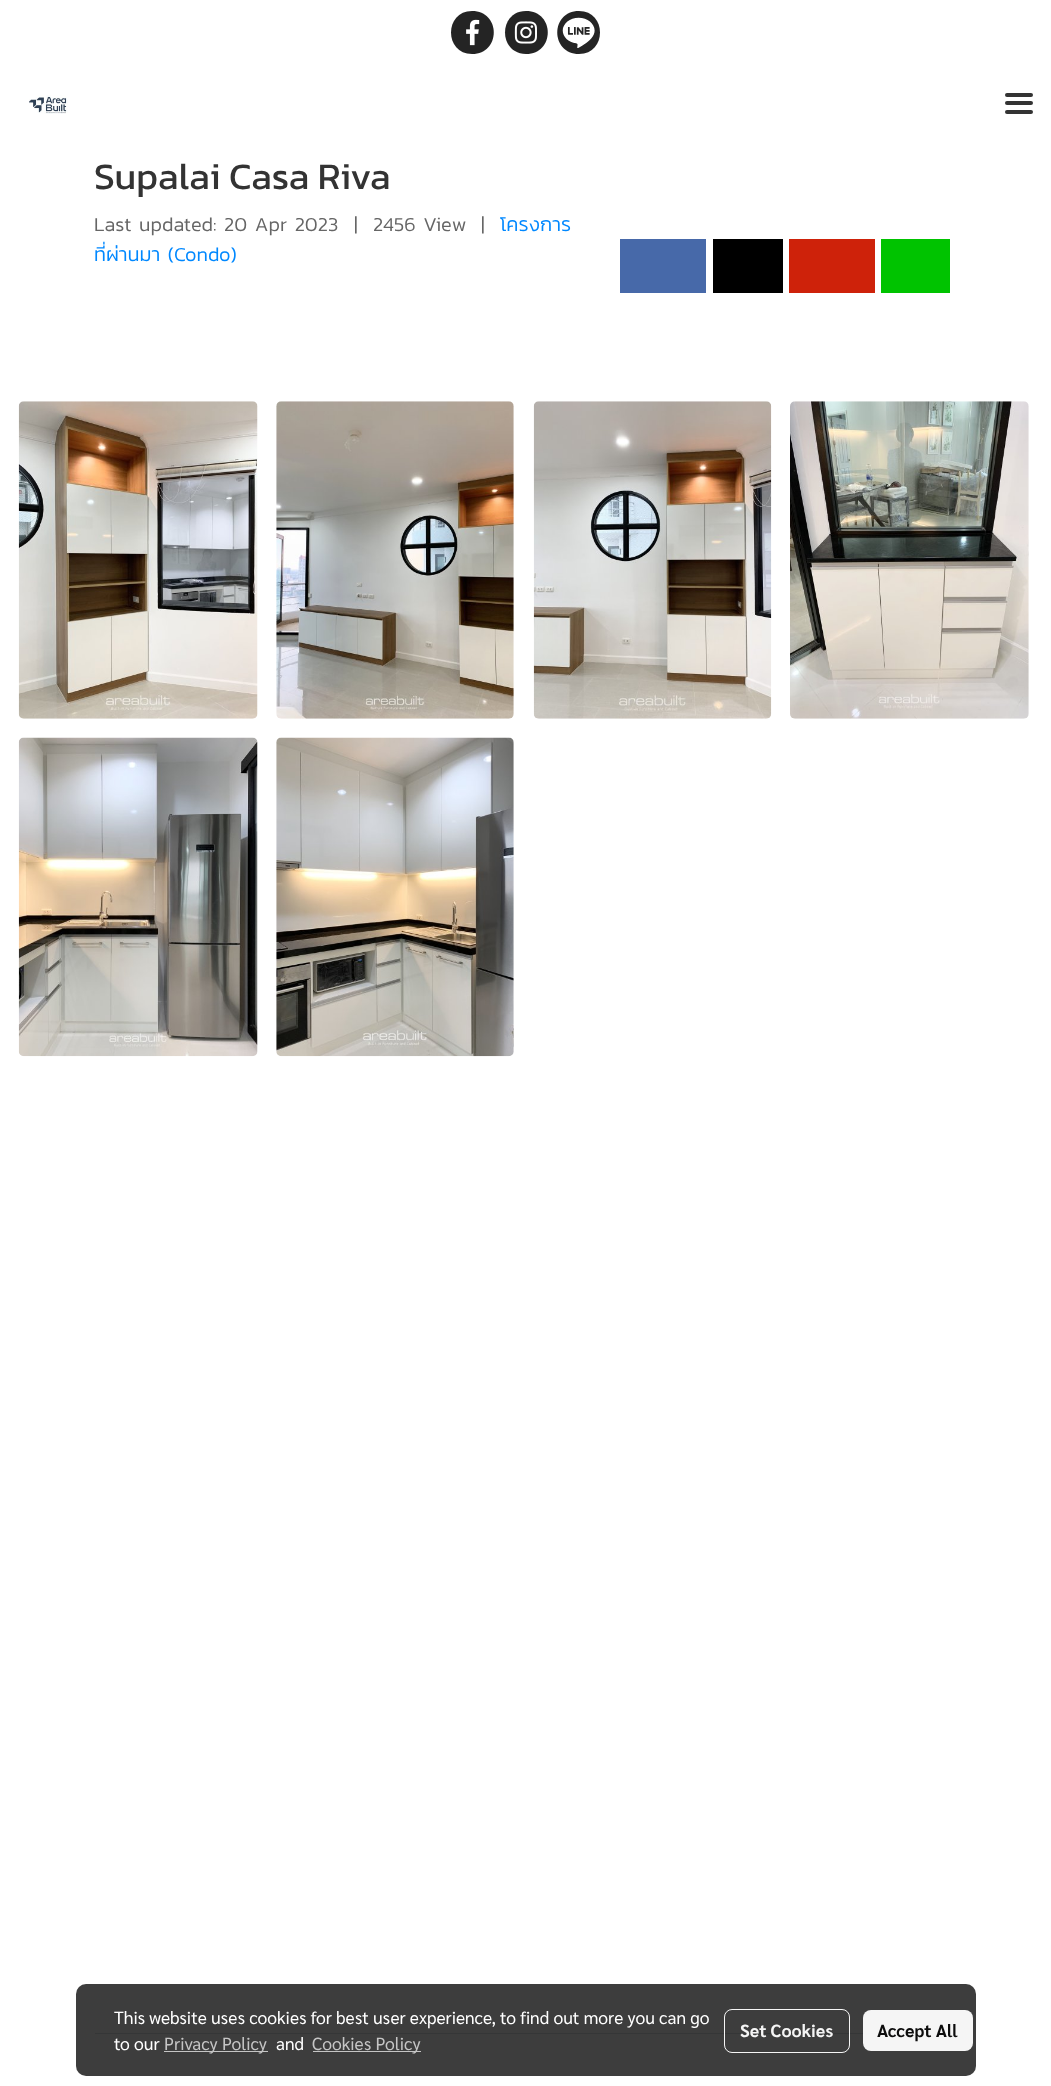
<svg xmlns="http://www.w3.org/2000/svg" width="1051" height="2086">
	<rect width="100%" height="100%" fill="#FFFFFF" />
	<path d="M472 11C444 11 444 54 472 54C501 54 501 11 472 11Z" fill="#242424" />
	<image x="466" y="19" width="14" height="27" href="assets/img1.png" />
	<path d="M526 11C498 11 498 54 526 54C555 54 555 11 526 11Z" fill="#242424" />
	<image x="514" y="21" width="23" height="23" href="assets/img2.png" />
	<path d="M579 11C550 11 550 54 579 54C607 54 607 11 579 11Z" fill="#242424" />
	<image x="562" y="17" width="33" height="31" href="assets/img3.png" />
	<image x="29" y="95" width="39" height="19" href="assets/img4.png" />
	<rect x="1005" y="101" width="28" height="4" rx="2" fill="#333333" />
	<rect x="1005" y="93" width="28" height="4" rx="2" fill="#333333" />
	<rect x="1005" y="110" width="28" height="4" rx="2" fill="#333333" />
	<text x="94" y="189" font-family="Kanit" font-size="37.5" fill="#333333">Supalai Casa Riva</text>
	<g font-family="Kanit" font-size="20" font-weight="300" fill="#666666">
		<text x="94" y="231">Last updated: 20 Apr 2023</text>
		<text x="354" y="231">|</text>
		<text x="373" y="231">2456 View</text>
		<text x="481" y="231">|</text>
	</g>
	<g font-family="Kanit" font-size="20" font-weight="300" fill="#0088FF">
		<text x="500" y="231">โครงการ</text>
		<text x="94" y="261">ที่ผ่านมา (Condo)</text>
	</g>
	<rect x="620" y="239" width="86" height="54" fill="#4769A9" />
	<rect x="713" y="239" width="70" height="54" fill="#000000" />
	<rect x="789" y="239" width="86" height="54" fill="#CE220A" />
	<rect x="881" y="239" width="69" height="54" fill="#00C300" />
	<image x="18" y="401" width="240" height="318" href="assets/img5.png" />
	<image x="276" y="401" width="238" height="318" href="assets/img6.png" />
	<image x="533" y="401" width="239" height="318" href="assets/img7.png" />
	<image x="790" y="401" width="239" height="318" href="assets/img8.png" />
	<image x="18" y="737" width="240" height="320" href="assets/img9.png" />
	<image x="276" y="737" width="238" height="320" href="assets/img10.png" />
	<rect x="95" y="2033" width="863" height="1" fill="#DEE2E6" />
	<rect x="76" y="1984" width="900" height="92" rx="10" fill="#000000" fill-opacity="0.76" />
	<g font-family="Sarabun" font-size="17.5" fill="#FFFFFF">
		<text x="114" y="2024">This website uses cookies for best user experience, to find out more you can go</text>
		<text x="114" y="2050">to our</text>
	</g>
	<rect x="164" y="2051" width="104" height="1" fill="#C5C5C5" />
	<text x="164" y="2050" font-family="Sarabun" font-size="17.5" fill="#C5C5C5">Privacy Policy</text>
	<text x="276" y="2050" font-family="Sarabun" font-size="17.5" fill="#FFFFFF">and</text>
	<rect x="313" y="2051" width="108" height="1" fill="#C5C5C5" />
	<text x="312" y="2050" font-family="Sarabun" font-size="17.5" fill="#C5C5C5">Cookies Policy</text>
	<rect x="724.5" y="2009.5" width="125" height="43" rx="7.5" fill="none" stroke="#FFFFFF" stroke-opacity="0.95" />
	<text x="740" y="2037" font-family="Sarabun" font-size="17.5" font-weight="700" fill="#F5F5F5">Set Cookies</text>
	<rect x="863" y="2010" width="110" height="41" rx="8" fill="#FFFFFF" fill-opacity="0.95" />
	<text x="877" y="2037" font-family="Sarabun" font-size="17.5" font-weight="700" fill="#0C0C0C">Accept All</text>
</svg>
